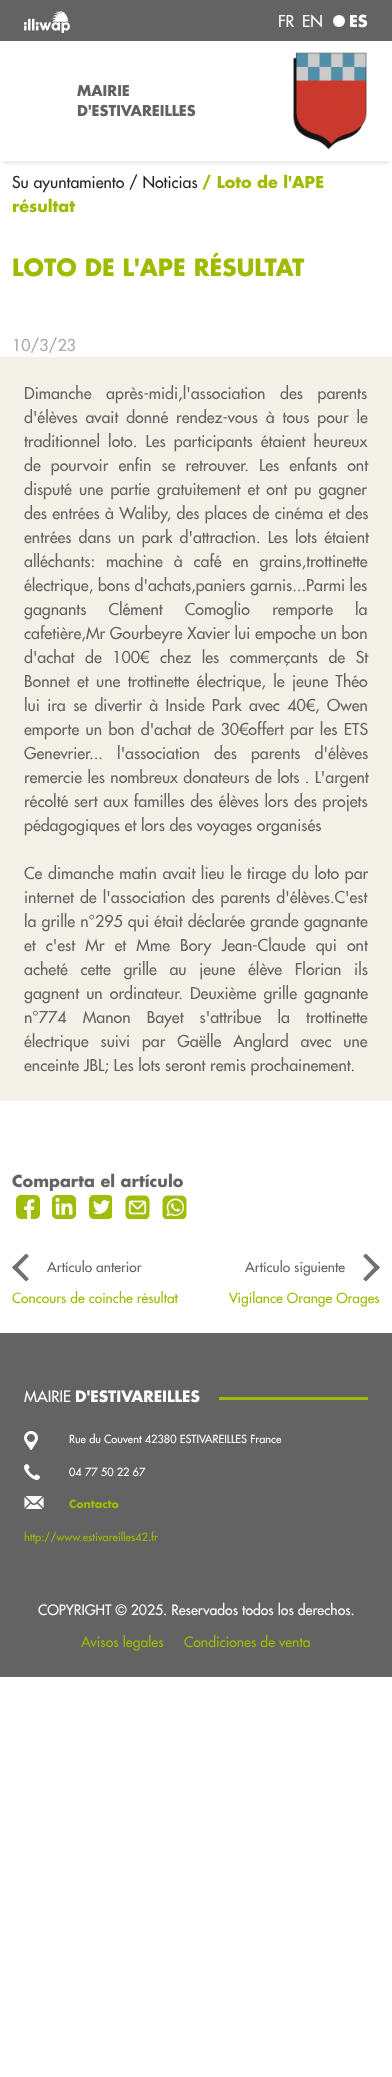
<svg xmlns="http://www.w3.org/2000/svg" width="392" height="2077">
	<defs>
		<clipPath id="clip1"><rect x="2" y="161" width="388" height="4" /></clipPath>
	</defs>
	<rect width="100%" height="100%" fill="#FFFFFF" />
	<g clip-path="url(#clip1)">
		<rect x="3" y="9" width="386" height="155" fill="#000000" fill-opacity="0.08" filter="blur(1.5px)" />
	</g>
	<rect x="0" y="0" width="392" height="41" fill="#646363" />
	<image x="24" y="11" width="46" height="22" href="assets/img1.png" />
	<g font-family="Futura" font-size="16" fill="#FFFFFF">
		<text x="278" y="27">FR</text>
		<text x="302" y="27">EN</text>
	</g>
	<circle cx="339" cy="21" r="6" fill="#FFFFFF" />
	<text x="349" y="27" font-family="Futura" font-size="16" font-weight="700" fill="#FFFFFF">ES</text>
	<g font-family="Futura" font-size="14.5" font-weight="700" fill="#646363">
		<text x="77" y="96">MAIRIE</text>
		<text x="77" y="116">D'ESTIVAREILLES</text>
	</g>
	<image x="293" y="52" width="74" height="98" href="assets/img2.png" />
	<text x="12" y="188" font-family="Futura" font-size="16" fill="#212529">Su ayuntamiento / Noticias</text>
	<g font-family="Futura" font-size="16" font-weight="700" fill="#9FBA00">
		<text x="202" y="188">/ Loto de l'APE</text>
		<text x="12" y="212">résultat</text>
	</g>
	<text x="12" y="276" font-family="Futura" font-size="23.1" font-weight="700" fill="#9FBA00">LOTO DE L'APE RÉSULTAT</text>
	<text x="12" y="351" font-family="Futura" font-size="16" fill="#A8A8A8">10/3/23</text>
	<rect x="0" y="357" width="392" height="744" fill="#F3F0E8" />
	<g font-family="Futura" font-size="16" fill="#646363">
		<text x="24" y="399" word-spacing="10">Dimanche après-midi,l'association des parents</text>
		<text x="24" y="423" word-spacing="3.25">d'élèves avait donné rendez-vous à tous pour le</text>
		<text x="24" y="447" word-spacing="3.5">traditionnel loto. Les participants étaient heureux</text>
		<text x="24" y="471" word-spacing="5.5">de pourvoir enfin se retrouver. Les enfants ont</text>
		<text x="24" y="495" word-spacing="2.5">disputé une partie gratuitement et ont pu gagner</text>
		<text x="24" y="519" word-spacing="0.75">des entrées à Waliby, des places de cinéma et des</text>
		<text x="24" y="543" word-spacing="2.5">entrées dans un park d'attraction. Les lots étaient</text>
		<text x="24" y="567" word-spacing="6.25">alléchants: machine à café en grains,trottinette</text>
		<text x="24" y="591">électrique, bons d'achats,paniers garnis...Parmi les</text>
		<text x="24" y="615" word-spacing="17.5">gagnants Clément Comoglio remporte la</text>
		<text x="24" y="639">cafetière,Mr Gourbeyre Xavier lui empoche un bon</text>
		<text x="24" y="663" word-spacing="6">d'achat de 100€ chez les commerçants de St</text>
		<text x="24" y="687" word-spacing="2.75">Bonnet et une trottinette électrique, le jeune Théo</text>
		<text x="24" y="711" word-spacing="2.75">lui ira se divertir à Inside Park avec 40€, Owen</text>
		<text x="24" y="735" word-spacing="1.75">emporte un bon d'achat de 30€offert par les ETS</text>
		<text x="24" y="759" word-spacing="9.5">Genevrier... l'association des parents d'élèves</text>
		<text x="24" y="783" word-spacing="0.75">remercie les nombreux donateurs de lots . L'argent</text>
		<text x="24" y="807" word-spacing="1">récolté sert aux familles des élèves lors des projets</text>
		<text x="24" y="831">pédagogiques et lors des voyages organisés</text>
		<text x="24" y="879" word-spacing="1">Ce dimanche matin avait lieu le tirage du loto par</text>
		<text x="24" y="903" word-spacing="1.5">internet de l'association des parents d'élèves.C'est</text>
		<text x="24" y="927" word-spacing="0.5">la grille n°295 qui était déclarée grande gagnante</text>
		<text x="24" y="951" word-spacing="5.5">et c'est Mr et Mme Bory Jean-Claude qui ont</text>
		<text x="24" y="975" word-spacing="8">acheté cette grille au jeune élève Florian ils</text>
		<text x="24" y="999" word-spacing="2.5">gagnent un ordinateur. Deuxième grille gagnante</text>
		<text x="24" y="1023" word-spacing="11.5">n°774 Manon Bayet s'attribue la trottinette</text>
		<text x="24" y="1047" word-spacing="7.25">électrique suivi par Gaëlle Anglard avec une</text>
		<text x="24" y="1071">enceinte JBL; Les lots seront remis prochainement.</text>
	</g>
	<text x="12" y="1187" font-family="Futura" font-size="16" font-weight="700" fill="#646363">Comparta el artículo</text>
	<image x="16" y="1195" width="24" height="24" href="assets/img3.png" />
	<image x="52" y="1195" width="24" height="24" href="assets/img4.png" />
	<image x="89" y="1195" width="23" height="24" href="assets/img5.png" />
	<image x="125" y="1195" width="25" height="24" href="assets/img6.png" />
	<image x="162" y="1195" width="25" height="24" href="assets/img7.png" />
	<path d="M26 1281.5L12 1267.5L15 1264.5L29 1279Z" fill="#707070" />
	<path d="M12 1267.5L26 1253.5L29 1256L15 1270.5Z" fill="#707070" />
	<text x="47" y="1272" font-family="Futura" font-size="13.75" fill="#646363">Artículo anterior</text>
	<path d="M366 1253.5L380 1267.5L377 1270.5L363 1256Z" fill="#707070" />
	<path d="M380 1267.5L366 1281.5L363 1279L377 1264.5Z" fill="#707070" />
	<text x="245" y="1272" font-family="Futura" font-size="13.75" fill="#646363">Artículo siguiente</text>
	<g font-family="Futura" font-size="13.75" fill="#9FBA00">
		<text x="12" y="1303">Concours de coinche résultat</text>
		<text x="229" y="1303">Vigilance Orange Orages</text>
	</g>
	<rect x="0" y="1333" width="392" height="344" fill="#646363" />
	<rect x="219" y="1397" width="149" height="3" fill="#9FBA00" />
	<text x="24" y="1402" font-family="Futura" font-size="15.25" fill="#FFFFFF">MAIRIE</text>
	<text x="75" y="1402" font-family="Futura" font-size="15.25" font-weight="700" fill="#FFFFFF">D'ESTIVAREILLES</text>
	<image x="24" y="1431" width="14" height="19" href="assets/img8.png" />
	<text x="69" y="1443" font-family="Futura" font-size="11" fill="#FFFFFF">Rue du Couvent 42380 ESTIVAREILLES France</text>
	<image x="24" y="1464" width="16" height="16" href="assets/img9.png" />
	<text x="69" y="1476" font-family="Futura" font-size="11" fill="#FFFFFF">04 77 50 22 67</text>
	<image x="24" y="1496" width="20" height="13" href="assets/img10.png" />
	<text x="69" y="1508" font-family="Futura" font-size="11" font-weight="700" fill="#9FBA00">Contacto</text>
	<text x="24" y="1541" font-family="Futura" font-size="11" fill="#9FBA00">http://www.estivareilles42.fr</text>
	<text x="38" y="1615" font-family="Futura" font-size="14" fill="#FFFFFF">COPYRIGHT © 2025. Reservados todos los derechos.</text>
	<g font-family="Futura" font-size="14" fill="#9FBA00">
		<text x="81" y="1647">Avisos legales</text>
		<text x="184" y="1647">Condiciones de venta</text>
	</g>
</svg>
